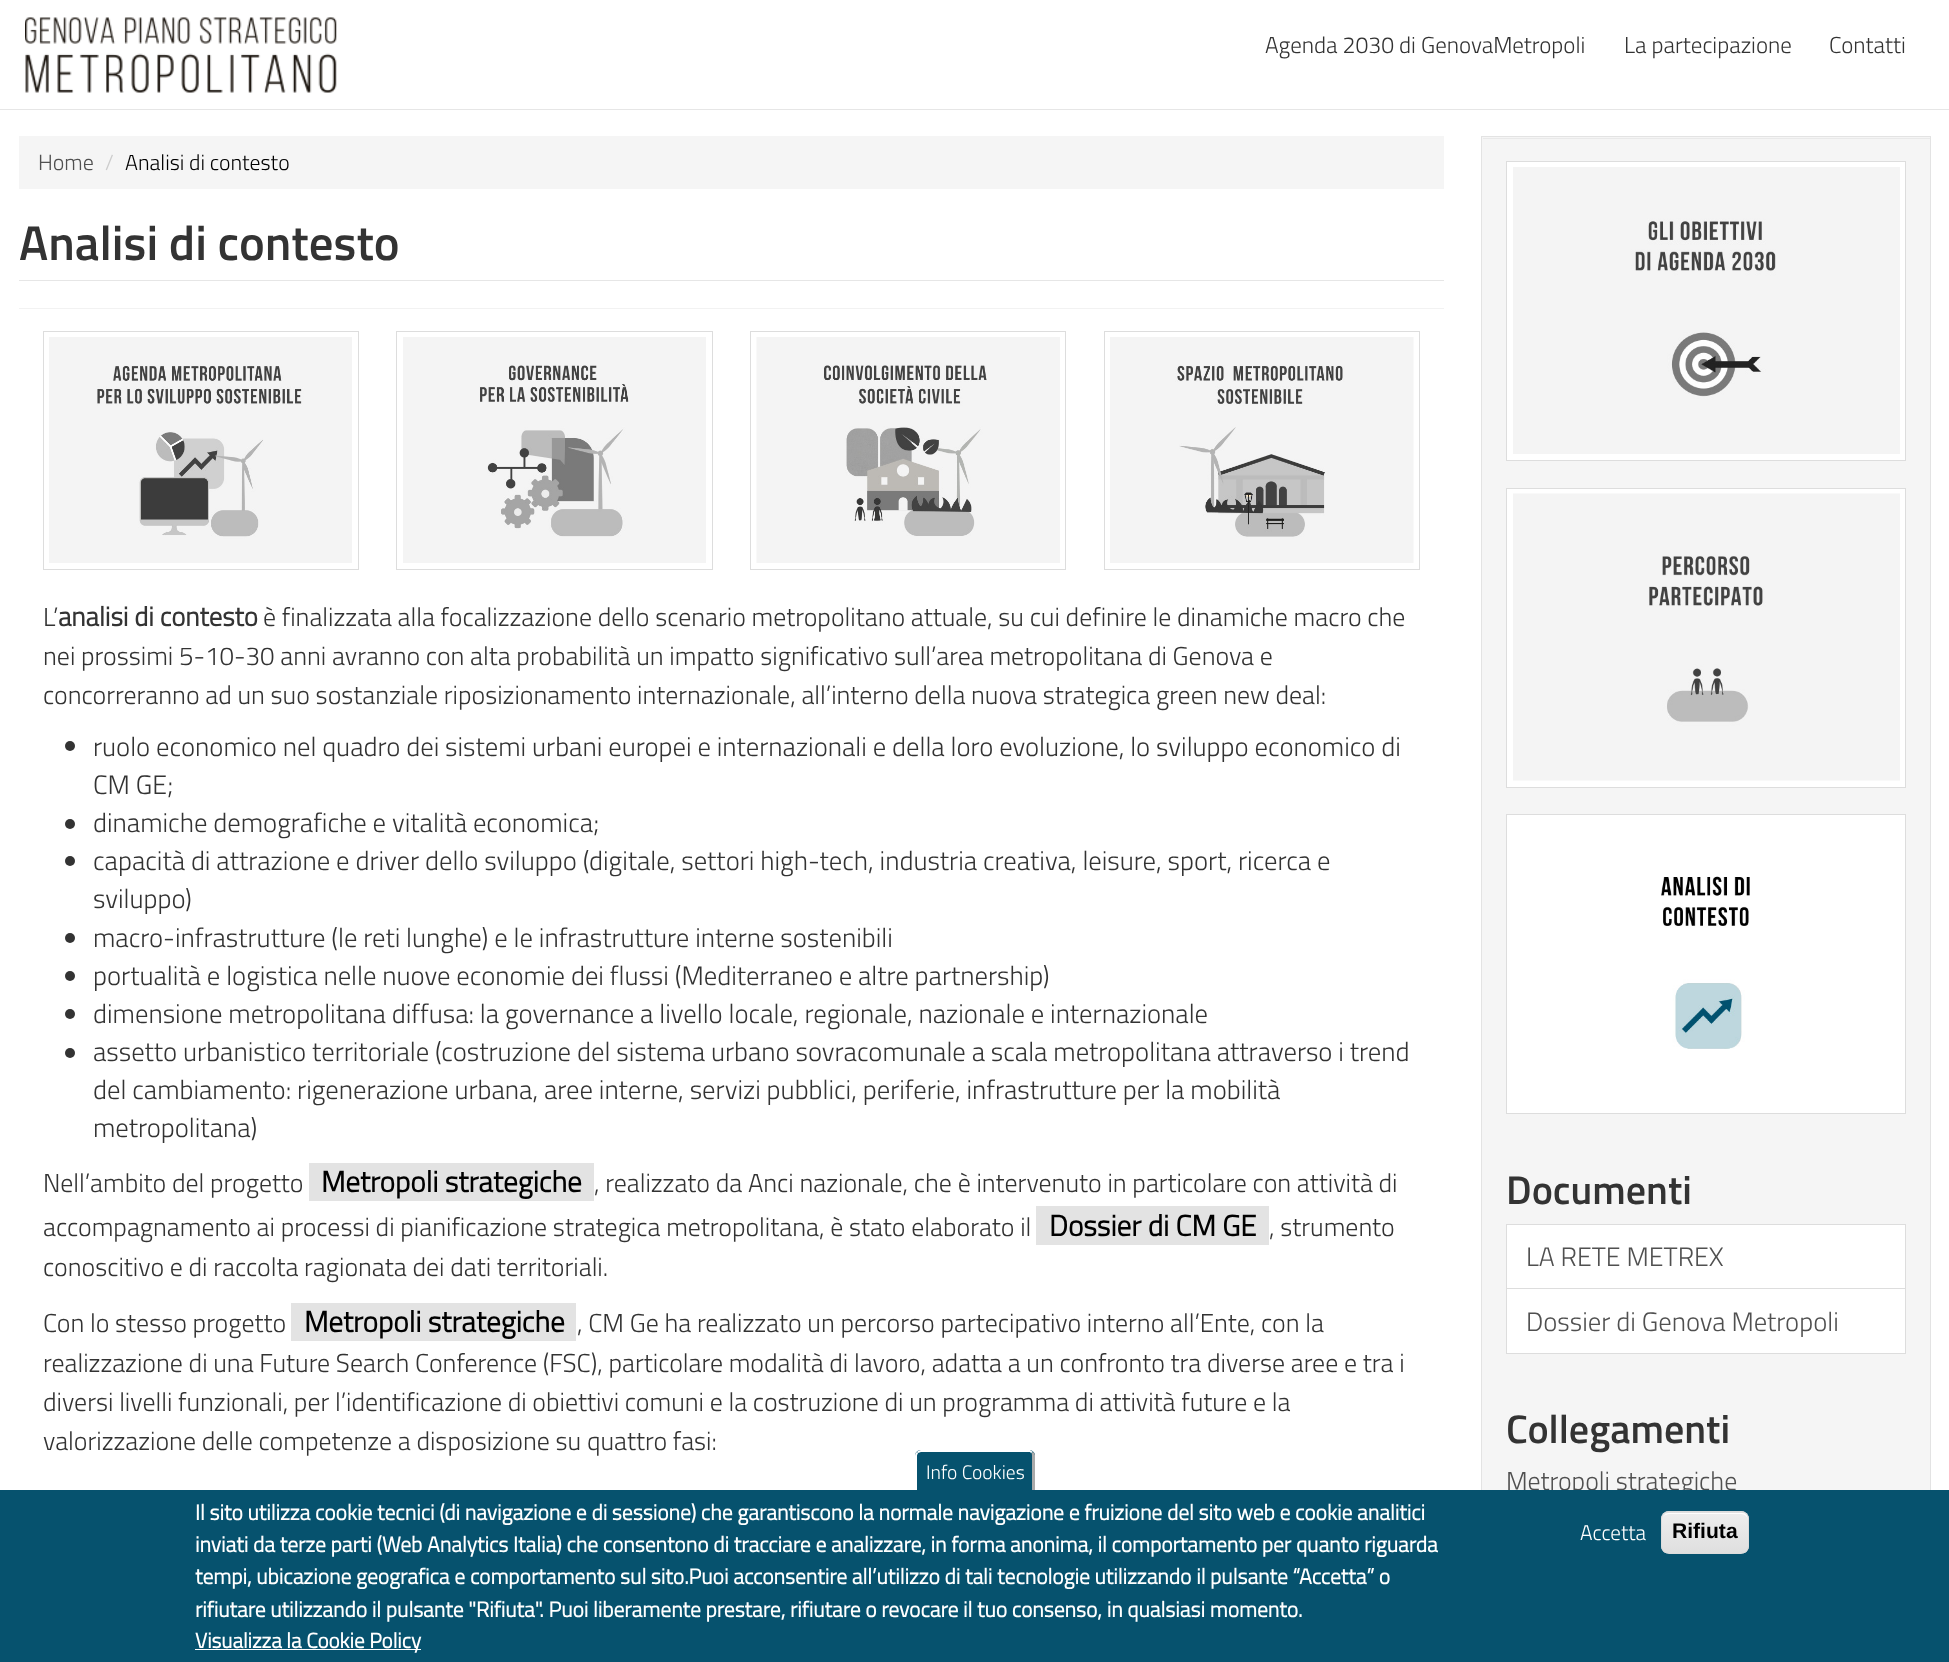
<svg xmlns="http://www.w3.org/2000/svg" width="1949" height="1662">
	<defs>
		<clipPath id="clip1"><rect x="1661" y="1511" width="88" height="43" rx="8" /></clipPath>
		<linearGradient id="g1" gradientUnits="userSpaceOnUse" x1="1705" y1="1473" x2="1705" y2="1513"><stop offset="0.05" stop-color="#EDEDED" /><stop offset="1" stop-color="#DFDFDF" /></linearGradient>
		<linearGradient id="g2" gradientUnits="userSpaceOnUse" x1="1705" y1="1513" x2="1705" y2="1553"><stop offset="0.05" stop-color="#EDEDED" /><stop offset="1" stop-color="#DFDFDF" /></linearGradient>
	</defs>
	<rect width="100%" height="100%" fill="#FFFFFF" />
	<rect x="0" y="109" width="1949" height="1" fill="#E6E6E6" />
	<image x="25" y="17" width="312" height="76" href="assets/img1.png" />
	<g font-family="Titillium" font-size="23" font-weight="300" fill="#333333">
		<text x="1265" y="53">Agenda 2030 di GenovaMetropoli</text>
		<text x="1624" y="53">La partecipazione</text>
		<text x="1829" y="53">Contatti</text>
	</g>
	<rect x="19" y="136" width="1425" height="53" fill="#F5F5F5" />
	<text x="38" y="170" font-family="Titillium" font-size="22" font-weight="300" fill="#505050">Home</text>
	<text x="105" y="170" font-family="Titillium" font-size="21.75" font-weight="300" fill="#CCCCCC">/</text>
	<text x="125" y="170" font-family="Titillium" font-size="21.75" font-weight="300" fill="#000000">Analisi di contesto</text>
	<rect x="19" y="280" width="1425" height="1" fill="#E6E6E6" />
	<text x="19" y="260" font-family="Titillium" font-size="48.75" font-weight="600" fill="#333333">Analisi di contesto</text>
	<rect x="19" y="308" width="1425" height="1" fill="#F2F2F2" />
	<rect x="43.5" y="331.5" width="315" height="238" fill="none" stroke="#DDDDDD" />
	<image x="49" y="337" width="303" height="226" href="assets/img2.png" />
	<rect x="396.5" y="331.5" width="316" height="238" fill="none" stroke="#DDDDDD" />
	<image x="403" y="337" width="303" height="226" href="assets/img3.png" />
	<rect x="750.5" y="331.5" width="315" height="238" fill="none" stroke="#DDDDDD" />
	<image x="756" y="337" width="304" height="226" href="assets/img4.png" />
	<rect x="1104.5" y="331.5" width="315" height="238" fill="none" stroke="#DDDDDD" />
	<image x="1110" y="337" width="304" height="226" href="assets/img5.png" />
	<text x="43" y="626" font-family="Titillium" font-size="25.95" font-weight="300" fill="#333333">L’</text>
	<text x="58" y="626" font-family="Titillium" font-size="26.75" font-weight="700" fill="#333333">analisi di contesto</text>
	<g font-family="Titillium" font-size="25.95" font-weight="300" fill="#333333">
		<text x="263" y="626">è finalizzata alla focalizzazione dello scenario metropolitano attuale, su cui definire le dinamiche macro che</text>
		<text x="43" y="665">nei prossimi 5-10-30 anni avranno con alta probabilità un impatto significativo sull’area metropolitana di Genova e</text>
		<text x="43" y="704">concorreranno ad un suo sostanziale riposizionamento internazionale, all’interno della nuova strategica green new deal:</text>
	</g>
	<circle cx="70" cy="746" r="5" fill="#333333" />
	<g font-family="Titillium" font-size="26.75" font-weight="300" fill="#333333">
		<text x="93" y="756">ruolo economico nel quadro dei sistemi urbani europei e internazionali e della loro evoluzione, lo sviluppo economico di</text>
		<text x="93" y="794">CM GE;</text>
	</g>
	<circle cx="70" cy="824" r="5" fill="#333333" />
	<text x="93" y="832" font-family="Titillium" font-size="26.75" font-weight="300" fill="#333333">dinamiche demografiche e vitalità economica;</text>
	<circle cx="70" cy="861" r="5" fill="#333333" />
	<g font-family="Titillium" font-size="26.75" font-weight="300" fill="#333333">
		<text x="93" y="870">capacità di attrazione e driver dello sviluppo (digitale, settori high-tech, industria creativa, leisure, sport, ricerca e</text>
		<text x="93" y="908">sviluppo)</text>
	</g>
	<circle cx="70" cy="938" r="5" fill="#333333" />
	<text x="93" y="947" font-family="Titillium" font-size="26.75" font-weight="300" fill="#333333">macro-infrastrutture (le reti lunghe) e le infrastrutture interne sostenibili</text>
	<circle cx="70" cy="976" r="5" fill="#333333" />
	<text x="93" y="985" font-family="Titillium" font-size="26.75" font-weight="300" fill="#333333">portualità e logistica nelle nuove economie dei flussi (Mediterraneo e altre partnership)</text>
	<circle cx="70" cy="1014" r="5" fill="#333333" />
	<text x="93" y="1023" font-family="Titillium" font-size="26.75" font-weight="300" fill="#333333">dimensione metropolitana diffusa: la governance a livello locale, regionale, nazionale e internazionale</text>
	<circle cx="70" cy="1053" r="5" fill="#333333" />
	<g font-family="Titillium" font-size="26.75" font-weight="300" fill="#333333">
		<text x="93" y="1061">assetto urbanistico territoriale (costruzione del sistema urbano sovracomunale a scala metropolitana attraverso i trend</text>
		<text x="93" y="1099">del cambiamento: rigenerazione urbana, aree interne, servizi pubblici, periferie, infrastrutture per la mobilità</text>
		<text x="93" y="1137">metropolitana)</text>
	</g>
	<text x="43" y="1192" font-family="Titillium" font-size="25.95" font-weight="300" fill="#333333">Nell’ambito del progetto</text>
	<rect x="309" y="1163" width="285" height="38" fill="#E3E3E3" />
	<text x="321" y="1192" font-family="Titillium" font-size="29.25" font-weight="700" fill="#000000">Metropoli strategiche</text>
	<g font-family="Titillium" font-size="25.95" font-weight="300" fill="#333333">
		<text x="594" y="1192">, realizzato da Anci nazionale, che è intervenuto in particolare con attività di</text>
		<text x="43" y="1236">accompagnamento ai processi di pianificazione strategica metropolitana, è stato elaborato il</text>
	</g>
	<rect x="1036" y="1206" width="233" height="39" fill="#E3E3E3" />
	<text x="1049" y="1236" font-family="Titillium" font-size="29.25" font-weight="700" fill="#000000">Dossier di CM GE</text>
	<g font-family="Titillium" font-size="25.95" font-weight="300" fill="#333333">
		<text x="1269" y="1236">, strumento</text>
		<text x="43" y="1276">conoscitivo e di raccolta ragionata dei dati territoriali.</text>
		<text x="43" y="1332">Con lo stesso progetto</text>
	</g>
	<rect x="291" y="1303" width="285" height="38" fill="#E3E3E3" />
	<text x="304" y="1332" font-family="Titillium" font-size="29.25" font-weight="700" fill="#000000">Metropoli strategiche</text>
	<g font-family="Titillium" font-size="25.95" font-weight="300" fill="#333333">
		<text x="577" y="1332">, CM Ge ha realizzato un percorso partecipativo interno all’Ente, con la</text>
		<text x="43" y="1372">realizzazione di una Future Search Conference (FSC), particolare modalità di lavoro, adatta a un confronto tra diverse aree e tra i</text>
		<text x="43" y="1411">diversi livelli funzionali, per l’identificazione di obiettivi comuni e la costruzione di un programma di attività future e la</text>
		<text x="43" y="1450">valorizzazione delle competenze a disposizione su quattro fasi:</text>
	</g>
	<rect x="1482" y="137" width="448" height="1353" fill="#F5F5F5" />
	<rect x="1483" y="138" width="447" height="1" fill="#E9E9E9" />
	<rect x="1481.5" y="136.5" width="449" height="1387" fill="none" stroke="#E3E3E3" />
	<rect x="1506.5" y="161.5" width="399" height="299" fill="#FFFFFF" stroke="#DDDDDD" />
	<image x="1513" y="167" width="387" height="287" href="assets/img6.png" />
	<rect x="1506.5" y="488.5" width="399" height="299" fill="#FFFFFF" stroke="#DDDDDD" />
	<image x="1513" y="493" width="387" height="288" href="assets/img7.png" />
	<rect x="1506.5" y="814.5" width="399" height="299" fill="#FFFFFF" stroke="#DDDDDD" />
	<image x="1661" y="876" width="89" height="173" href="assets/img8.png" />
	<text x="1506" y="1204" font-family="Titillium" font-size="40" font-weight="600" fill="#333333">Documenti</text>
	<rect x="1506.5" y="1224.5" width="399" height="64" fill="#FFFFFF" stroke="#DDDDDD" />
	<text x="1526" y="1266" font-family="Titillium" font-size="26.75" font-weight="300" fill="#505050">LA RETE METREX</text>
	<rect x="1506.5" y="1288.5" width="399" height="65" fill="#FFFFFF" stroke="#DDDDDD" />
	<text x="1526" y="1331" font-family="Titillium" font-size="26.75" font-weight="300" fill="#505050">Dossier di Genova Metropoli</text>
	<text x="1506" y="1443" font-family="Titillium" font-size="40" font-weight="600" fill="#333333">Collegamenti</text>
	<text x="1506" y="1490" font-family="Titillium" font-size="25.95" font-weight="300" fill="#505050">Metropoli strategiche</text>
	<rect x="0" y="1490" width="1949" height="172" fill="#06526E" />
	<path d="M921 1450H1029C1032.5 1450 1035 1452.5 1035 1456V1490H915V1456C915 1452.5 917.5 1450 921 1450Z" fill="#06526E" />
	<path d="M921 1450H1030L1033 1452L1031 1453L1030 1452H921L918 1453L917 1452C918 1451 919 1450 921 1450Z" fill="#FFFFFF" />
	<path d="M1033 1452C1034 1452.5 1034.5 1454 1035 1455V1490H1032V1456C1032 1455 1032 1454 1031.5 1453.5Z" fill="#AAAAAA" />
	<path d="M917 1490H915V1456C915 1454.5 915.5 1453 917 1452L918 1453.5C917.5 1454 917 1455 917 1456Z" fill="#FFFFFF" />
	<text x="926" y="1479" font-family="Titillium" font-size="19.5" font-weight="300" fill="#FFFFFF">Info Cookies</text>
	<g font-family="Titillium" font-size="21.53" font-weight="700" fill="#FFFFFF">
		<text x="195" y="1520">Il sito utilizza cookie tecnici (di navigazione e di sessione) che garantiscono la normale navigazione e fruizione del sito web e cookie analitici</text>
		<text x="195" y="1552">inviati da terze parti (Web Analytics Italia) che consentono di tracciare e analizzare, in forma anonima, il comportamento per quanto riguarda</text>
		<text x="195" y="1584">tempi, ubicazione geografica e comportamento sul sito.Puoi acconsentire all’utilizzo di tali tecnologie utilizzando il pulsante “Accetta” o</text>
		<text x="195" y="1617">rifiutare utilizzando il pulsante "Rifiuta". Puoi liberamente prestare, rifiutare o revocare il tuo consenso, in qualsiasi momento.</text>
	</g>
	<rect x="195" y="1649" width="226" height="1" fill="#FFFFFF" />
	<text x="195" y="1648" font-family="Titillium" font-size="21.1" font-weight="700" fill="#FFFFFF">Visualizza la Cookie Policy</text>
	<text x="1580" y="1540" font-family="Titillium" font-size="21.1" font-weight="300" fill="#FFFFFF">Accetta</text>
	<g clip-path="url(#clip1)">
		<rect x="1661" y="1511" width="88" height="2" fill="url(#g1)" />
		<rect x="1661" y="1513" width="88" height="40" fill="url(#g2)" />
	</g>
	<path d="M1669 1514H1741C1745 1514 1748 1517 1748 1520V1519C1748 1516 1745 1513 1742 1513H1669C1667 1513 1665 1514 1664 1516C1665 1515 1667 1514 1669 1514Z" fill="#FFFFFF" />
	<rect x="1661.5" y="1511.5" width="87" height="42" rx="7.5" fill="none" stroke="#DCDCDC" />
	<text x="1672" y="1538" font-family="Liberation Sans" font-size="21.1" font-weight="700" fill="#000000">Rifiuta</text>
</svg>
